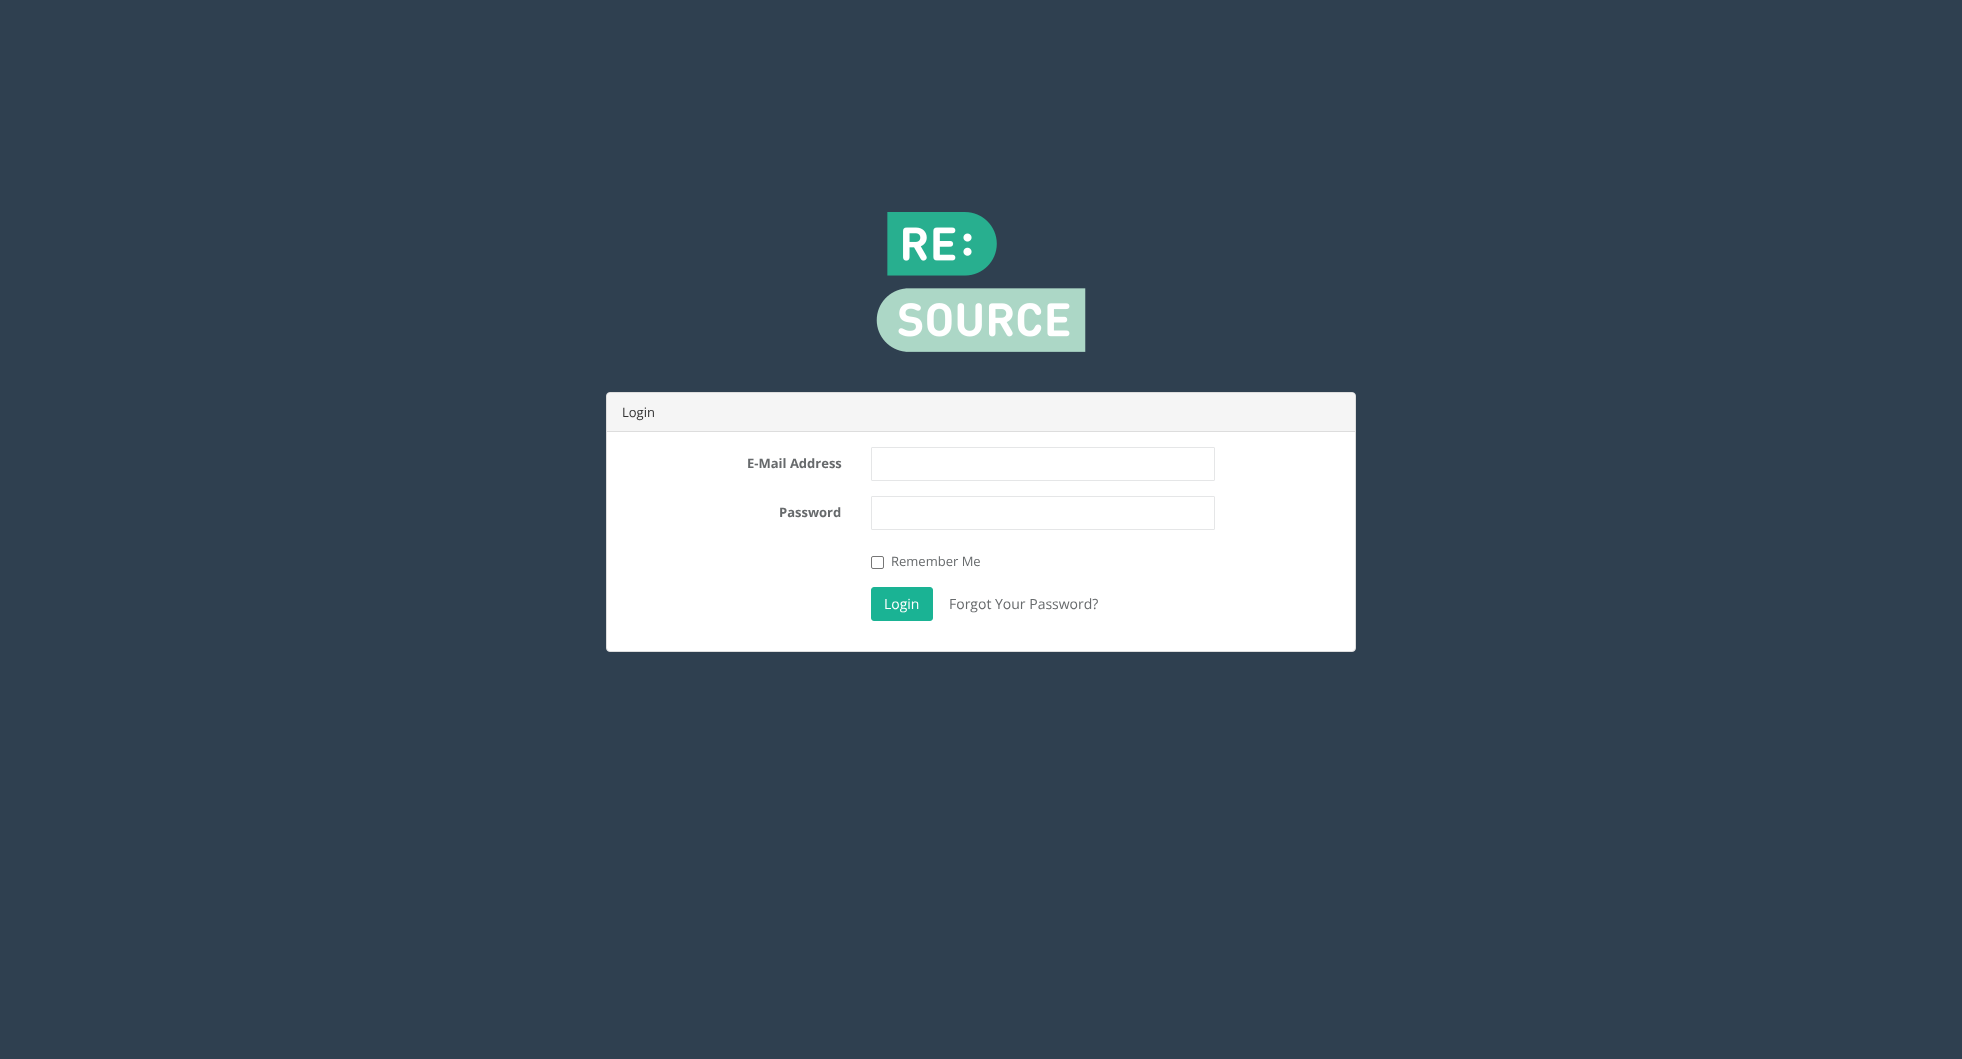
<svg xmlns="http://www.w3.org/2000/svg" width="1962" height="1059">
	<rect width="100%" height="100%" fill="#2F4050" />
	<image x="876" y="212" width="210" height="140" href="assets/img1.png" />
	<rect x="606.5" y="392.5" width="749" height="259" rx="3.5" fill="#FFFFFF" stroke="#DDDDDD" />
	<path d="M610 393H1352C1353.5 393 1355 394.5 1355 396V432H607V396C607 394.5 608.5 393 610 393Z" fill="#F5F5F5" />
	<rect x="607" y="431" width="748" height="1" fill="#DDDDDD" />
	<text x="622" y="417" font-family="Open Sans" font-size="13" fill="#333333">Login</text>
	<text x="747" y="468" font-family="Open Sans" font-size="13" font-weight="700" fill="#676A6C">E-Mail Address</text>
	<rect x="871.5" y="447.5" width="343" height="33" rx="0.5" fill="none" stroke="#E5E6E7" />
	<text x="779" y="517" font-family="Open Sans" font-size="13" font-weight="700" fill="#676A6C">Password</text>
	<rect x="871.5" y="496.5" width="343" height="33" rx="0.5" fill="none" stroke="#E5E6E7" />
	<rect x="871.5" y="556.5" width="12" height="12" rx="1.5" fill="none" stroke="#767676" />
	<text x="891" y="566" font-family="Open Sans" font-size="13" fill="#676A6C">Remember Me</text>
	<rect x="871.5" y="587.5" width="61" height="33" rx="2.5" fill="#1AB394" stroke="#1AB394" />
	<text x="884" y="609" font-family="Open Sans" font-size="14" fill="#FFFFFF">Login</text>
	<text x="949" y="609" font-family="Open Sans" font-size="14" fill="#676A6C">Forgot Your Password?</text>
</svg>
